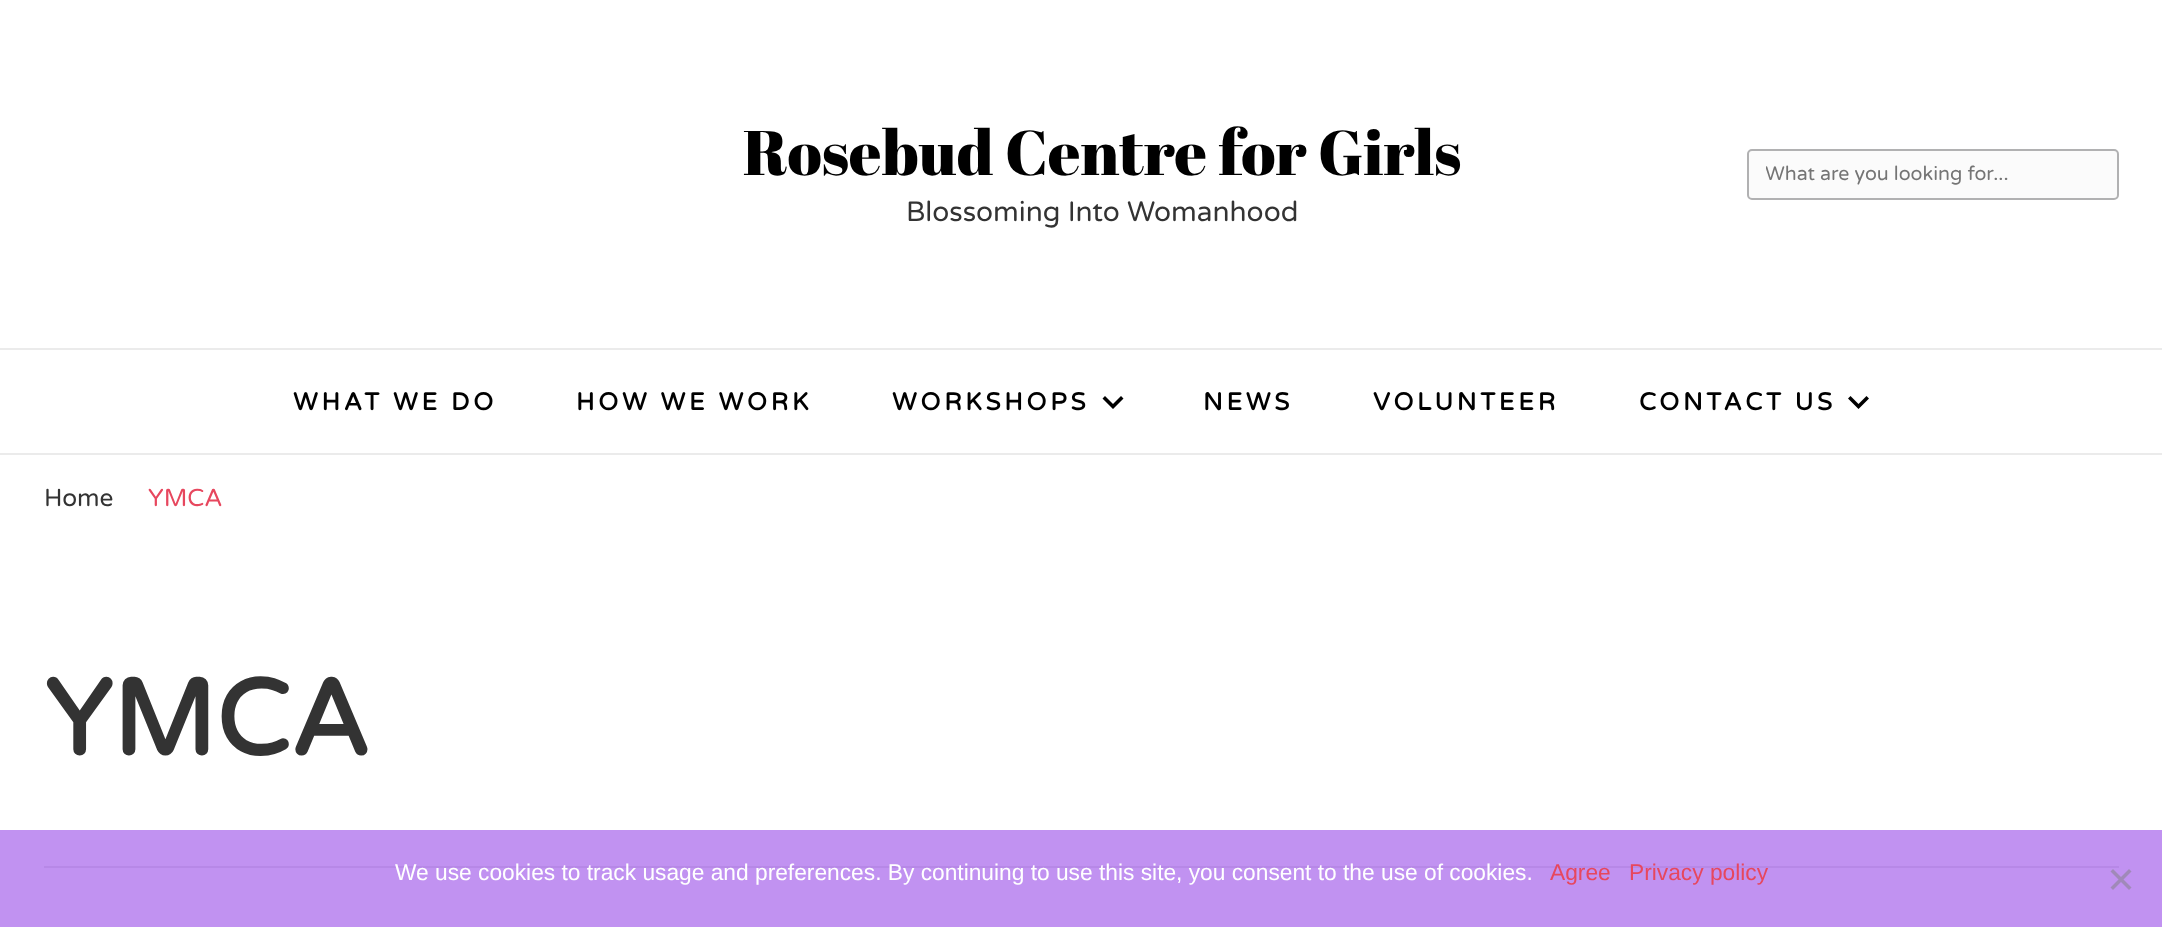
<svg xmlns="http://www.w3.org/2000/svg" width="2162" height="927">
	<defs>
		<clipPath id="clip1"><rect x="1766" y="163" width="278" height="23" /></clipPath>
	</defs>
	<rect width="100%" height="100%" fill="#FFFFFF" />
	<rect x="0" y="830" width="2162" height="97" fill="#C192F1" />
	<rect x="0" y="453" width="2162" height="2" fill="#EBEBEB" />
	<text x="743" y="175" font-family="Abril Fatface" font-size="63" fill="#000000">Rosebud Centre for Girls</text>
	<text x="906" y="221" font-family="Varela Round" font-size="28" fill="#333333">Blossoming Into Womanhood</text>
	<rect x="1748" y="150" width="370" height="49" rx="4" fill="#FBFBFB" stroke="#B1B1B2" stroke-width="2" />
	<g clip-path="url(#clip1)">
		<text x="1765" y="180" font-family="Varela Round" font-size="19.6" fill="#757575">What are you looking for...</text>
	</g>
	<rect x="0" y="348" width="2162" height="2" fill="#EBEBEB" />
	<g font-family="Varela Round" font-size="24.5" font-weight="700" letter-spacing="3.75" fill="#000000">
		<text x="293" y="410">WHAT WE DO</text>
		<text x="576" y="410">HOW WE WORK</text>
		<text x="892" y="410">WORKSHOPS</text>
	</g>
	<path d="M1121 396L1123.5 398.5L1113 409L1102.5 398.5L1105 396L1113 404Z" fill="#000000" />
	<g font-family="Varela Round" font-size="24.5" font-weight="700" letter-spacing="3.75" fill="#000000">
		<text x="1203" y="410">NEWS</text>
		<text x="1373" y="410">VOLUNTEER</text>
		<text x="1639" y="410">CONTACT US</text>
	</g>
	<path d="M1866.5 396L1869 398.5L1858.5 409L1848 398.5L1850.5 396L1858.5 404Z" fill="#000000" />
	<text x="44" y="506" font-family="Varela Round" font-size="24.5" fill="#333333">Home</text>
	<text x="148" y="506" font-family="Varela Round" font-size="24.5" fill="#E7475E">YMCA</text>
	<rect x="44" y="866" width="2075" height="2" fill="#B788E7" />
	<text x="44" y="755" font-family="Varela Round" font-size="107" font-weight="700" fill="#333333">YMCA</text>
	<text x="395" y="880" font-family="Liberation Sans" font-size="22.75" fill="#FFFFFF">We use cookies to track usage and preferences. By continuing to use this site, you consent to the use of cookies.</text>
	<g font-family="Liberation Sans" font-size="22.75" fill="#E7475E">
		<text x="1550" y="880">Agree</text>
		<text x="1629" y="880">Privacy policy</text>
	</g>
	<path d="M2129 869L2131.5 871.5L2113 890L2110.5 887.5Z" fill="#A089B9" />
	<path d="M2110.5 871.5L2113 869L2131.5 887.5L2129 890Z" fill="#A089B9" />
</svg>
